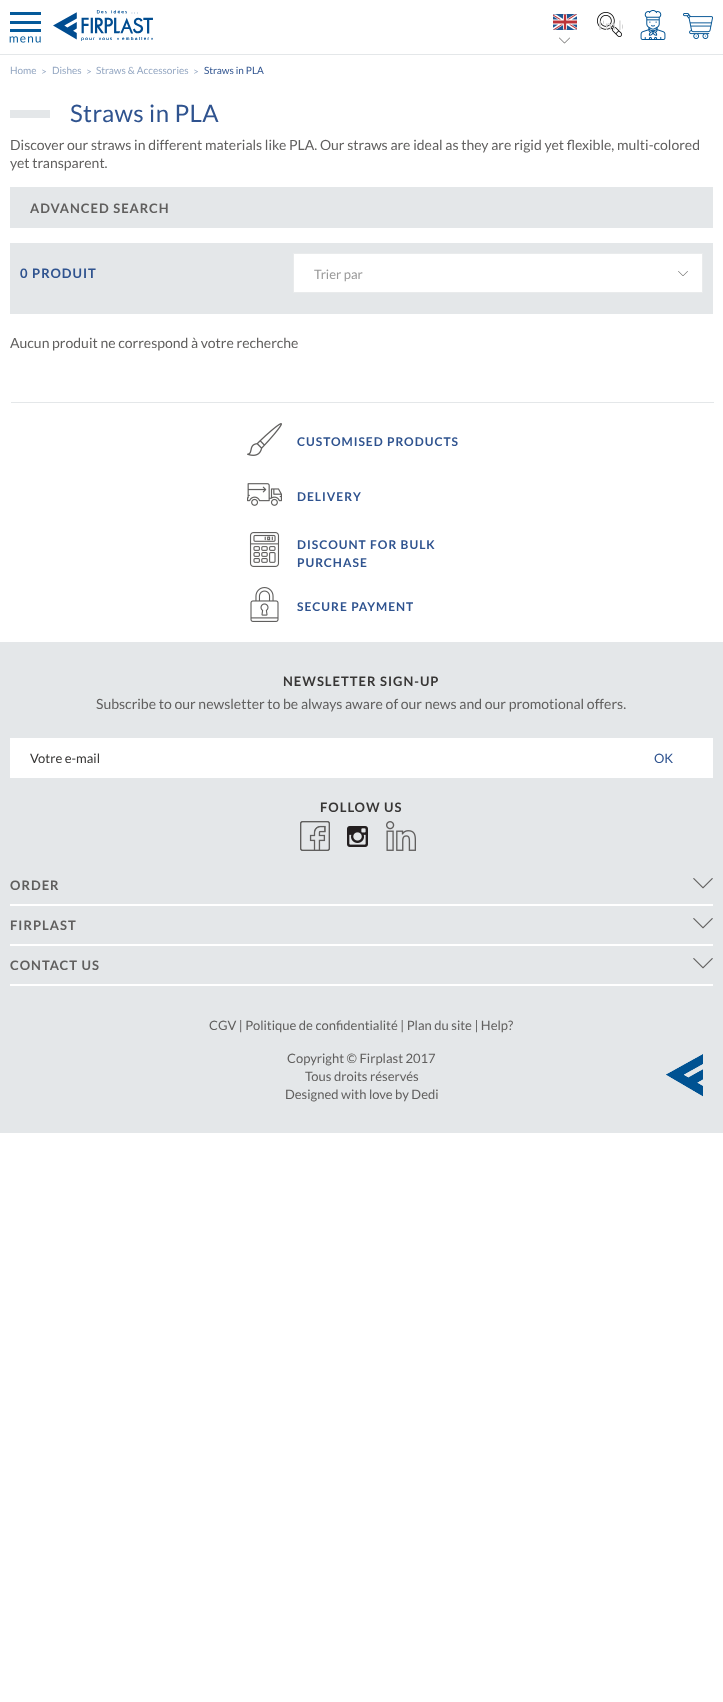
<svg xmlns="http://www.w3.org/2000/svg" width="723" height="1702">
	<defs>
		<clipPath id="clip1"><rect x="598" y="17" width="25" height="16" /></clipPath>
	</defs>
	<rect width="100%" height="100%" fill="#FFFFFF" />
	<rect x="0" y="54" width="723" height="1" fill="#E4E7E9" />
	<image x="9" y="12" width="32" height="31" href="assets/img1.png" />
	<image x="53" y="10" width="100" height="31" href="assets/img2.png" />
	<image x="553" y="14" width="24" height="16" href="assets/img3.png" />
	<image x="559" y="37" width="11" height="7" href="assets/img4.png" />
	<image x="597" y="12" width="25" height="25" href="assets/img5.png" />
	<image x="640" y="10" width="26" height="30" href="assets/img6.png" />
	<image x="683" y="13" width="30" height="26" href="assets/img7.png" />
	<g clip-path="url(#clip1)">
		<text x="598" y="30" font-family="Lato" font-size="13" fill="#D2D2D2">I'm lo</text>
	</g>
	<g font-family="Lato" font-size="10" fill="#94A7C2">
		<text x="10" y="74">Home</text>
		<text x="41" y="75">&gt;</text>
		<text x="52" y="74">Dishes</text>
		<text x="86" y="75">&gt;</text>
		<text x="96" y="74">Straws &amp; Accessories</text>
		<text x="193" y="75">&gt;</text>
	</g>
	<text x="204" y="74" font-family="Lato" font-size="10" fill="#2F538F">Straws in PLA</text>
	<rect x="10" y="110" width="40" height="8" fill="#E4E7E9" />
	<text x="70" y="122" font-family="Lato" font-size="24" letter-spacing="0.4" fill="#2F538F">Straws in PLA</text>
	<g font-family="Lato" font-size="14" fill="#605F5E">
		<text x="10" y="150">Discover our straws in different materials like PLA. Our straws are ideal as they are rigid yet flexible, multi-colored</text>
		<text x="10" y="168">yet transparent.</text>
	</g>
	<rect x="10" y="187" width="703" height="41" fill="#E4E7E9" />
	<text x="30" y="213" font-family="Lato" font-size="13" font-weight="700" letter-spacing="1" fill="#605F5E">ADVANCED SEARCH</text>
	<rect x="10" y="243" width="703" height="71" fill="#E4E7E9" />
	<text x="20" y="278" font-family="Lato" font-size="13" font-weight="700" letter-spacing="1" fill="#2F538F">0 PRODUIT</text>
	<rect x="293.5" y="253.5" width="409" height="39" fill="#FFFFFF" stroke="#E9EBEC" />
	<text x="314" y="279" font-family="Lato" font-size="13" fill="#999999">Trier par</text>
	<image x="678" y="271" width="10" height="5" href="assets/img8.png" />
	<text x="10" y="348" font-family="Lato" font-size="14" fill="#605F5E">Aucun produit ne correspond à votre recherche</text>
	<rect x="11" y="402" width="703" height="1" fill="#E4E7E9" />
	<image x="247" y="423" width="35" height="33" href="assets/img9.png" />
	<text x="297" y="446" font-family="Lato" font-size="12" font-weight="700" letter-spacing="1" fill="#2F538F">CUSTOMISED PRODUCTS</text>
	<image x="247" y="483" width="35" height="23" href="assets/img10.png" />
	<text x="297" y="501" font-family="Lato" font-size="12" font-weight="700" letter-spacing="1" fill="#2F538F">DELIVERY</text>
	<image x="249" y="532" width="31" height="35" href="assets/img11.png" />
	<g font-family="Lato" font-size="12" font-weight="700" letter-spacing="1" fill="#2F538F">
		<text x="297" y="549">DISCOUNT FOR BULK</text>
		<text x="297" y="567">PURCHASE</text>
	</g>
	<image x="250" y="587" width="29" height="35" href="assets/img12.png" />
	<text x="297" y="611" font-family="Lato" font-size="12" font-weight="700" letter-spacing="1" fill="#2F538F">SECURE PAYMENT</text>
	<rect x="0" y="642" width="723" height="491" fill="#E4E7E9" />
	<text x="283" y="686" font-family="Lato" font-size="13" font-weight="700" letter-spacing="1" fill="#373635">NEWSLETTER SIGN-UP</text>
	<text x="96" y="709" font-family="Lato" font-size="14" fill="#605F5E">Subscribe to our newsletter to be always aware of our news and our promotional offers.</text>
	<rect x="10" y="738" width="703" height="40" fill="#FFFFFF" />
	<text x="30" y="763" font-family="Lato" font-size="13" fill="#373635">Votre e-mail</text>
	<text x="654" y="763" font-family="Lato" font-size="13" fill="#2F538F">OK</text>
	<text x="320" y="812" font-family="Lato" font-size="13" font-weight="700" letter-spacing="1" fill="#373635">FOLLOW US</text>
	<image x="300" y="821" width="30" height="30" href="assets/img13.png" />
	<image x="347" y="826" width="21" height="21" href="assets/img14.png" />
	<image x="386" y="821" width="30" height="30" href="assets/img15.png" />
	<rect x="10" y="904" width="703" height="2" fill="#FFFFFF" />
	<text x="10" y="890" font-family="Lato" font-size="13" font-weight="700" letter-spacing="1" fill="#605F5E">ORDER</text>
	<image x="693" y="878" width="20" height="11" href="assets/img16.png" />
	<rect x="10" y="944" width="703" height="2" fill="#FFFFFF" />
	<text x="10" y="930" font-family="Lato" font-size="13" font-weight="700" letter-spacing="1" fill="#605F5E">FIRPLAST</text>
	<image x="693" y="918" width="20" height="11" href="assets/img16.png" />
	<rect x="10" y="984" width="703" height="2" fill="#FFFFFF" />
	<text x="10" y="970" font-family="Lato" font-size="13" font-weight="700" letter-spacing="1" fill="#605F5E">CONTACT US</text>
	<image x="693" y="958" width="20" height="11" href="assets/img16.png" />
	<g font-family="Lato" font-size="13" fill="#605F5E">
		<text x="209" y="1030">CGV | Politique de confidentialité | Plan du site | Help?</text>
		<text x="287" y="1063">Copyright © Firplast 2017</text>
	</g>
	<image x="666" y="1054" width="37" height="43" href="assets/img17.png" />
	<g font-family="Lato" font-size="13" fill="#605F5E">
		<text x="305" y="1081">Tous droits réservés</text>
		<text x="285" y="1099">Designed with love by Dedi</text>
	</g>
</svg>
